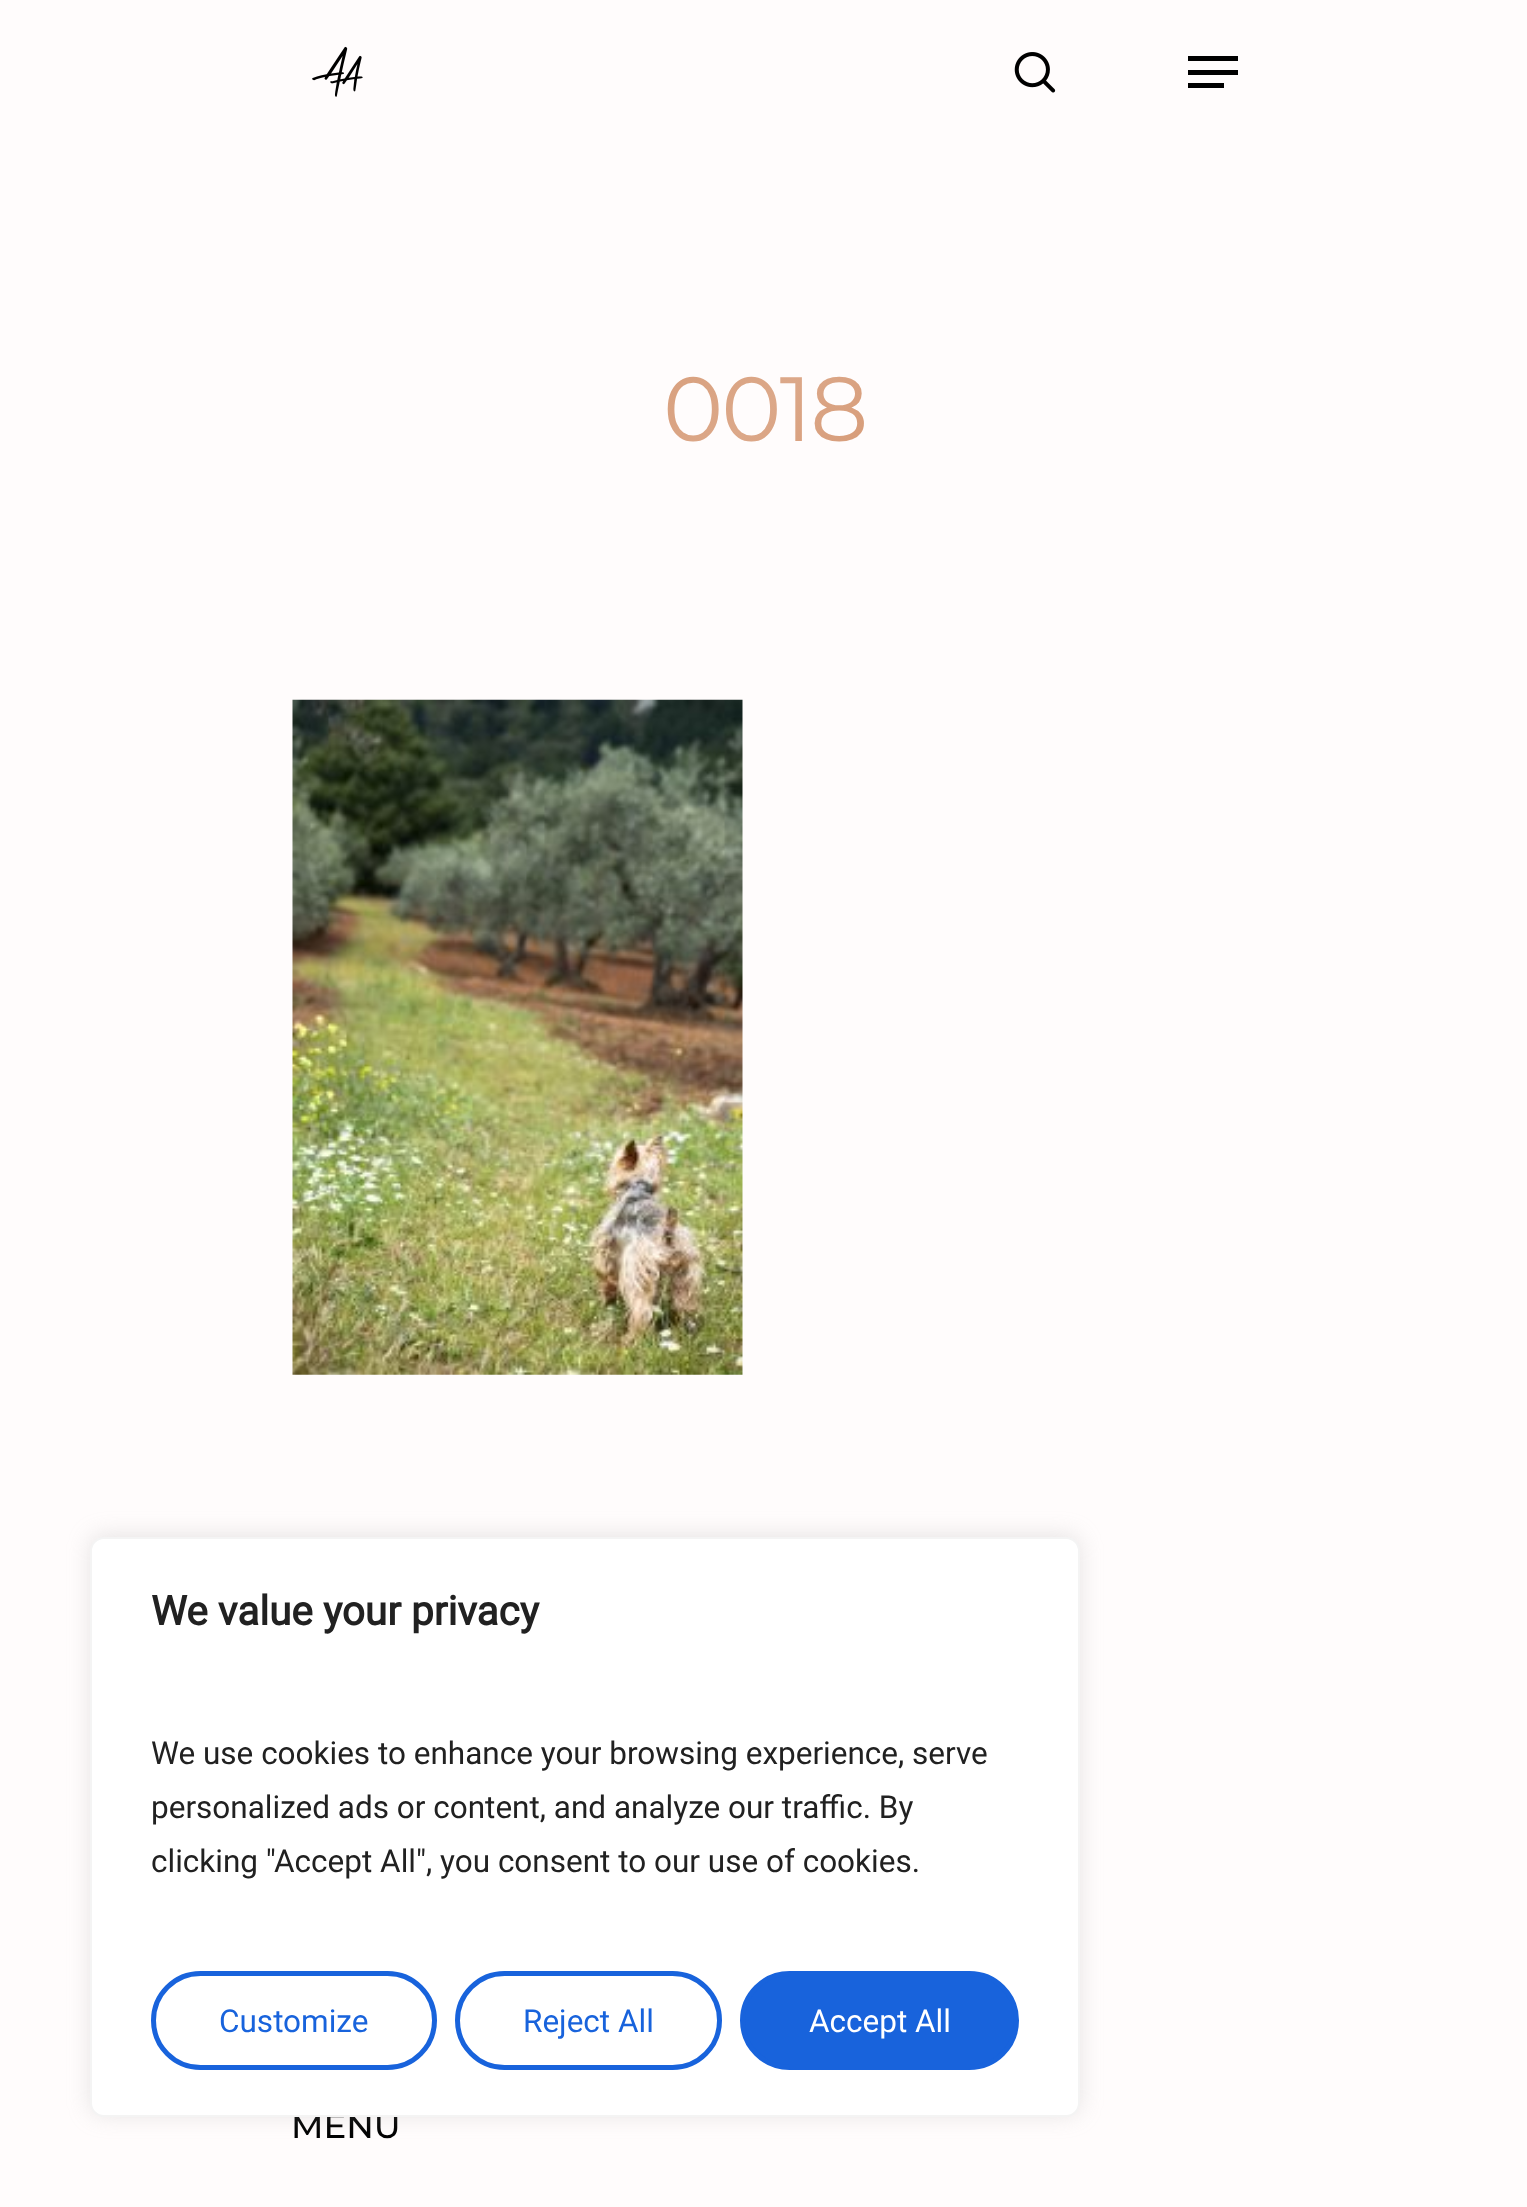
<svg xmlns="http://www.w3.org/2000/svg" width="1527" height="2207">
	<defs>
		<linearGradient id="g1" gradientUnits="userSpaceOnUse" x1="477" y1="122" x2="1050" y2="695"><stop offset="0" stop-color="#CE875B" /><stop offset="0.5" stop-color="#DCA889" /><stop offset="1" stop-color="#C87849" /></linearGradient>
	</defs>
	<rect width="100%" height="100%" fill="#FFFCFC" />
	<image x="312" y="46" width="51" height="51" href="assets/img1.png" />
	<image x="1014" y="52" width="42" height="41" href="assets/img2.png" />
	<rect x="1188" y="56" width="50" height="5" fill="#000000" />
	<rect x="1188" y="83" width="36" height="5" fill="#000000" />
	<rect x="1188" y="70" width="50" height="5" fill="#000000" />
	<text x="663" y="441" font-family="Montserrat" font-size="91" letter-spacing="-2" fill="url(#g1)">0018</text>
	<image x="292" y="699" width="451" height="676" href="assets/img3.png" />
	<text x="291" y="2138" font-family="Montserrat" font-size="34" font-weight="500" fill="#000000">MENU</text>
	<rect x="90" y="1535" width="990" height="580" rx="14" fill="#ACABAB" fill-opacity="0.3" filter="blur(11px)" />
	<rect x="91" y="1538" width="988" height="578" rx="13" fill="#FFFFFF" stroke="#F4F4F4" stroke-width="2" />
	<text x="151" y="1625" font-family="Roboto" font-size="40.5" font-weight="700" fill="#212121">We value your privacy</text>
	<g font-family="Roboto" font-size="31.5" fill="#212121">
		<text x="151" y="1764">We use cookies to enhance your browsing experience, serve</text>
		<text x="151" y="1818">personalized ads or content, and analyze our traffic. By</text>
		<text x="151" y="1872">clicking "Accept All", you consent to our use of cookies.</text>
	</g>
	<rect x="153.5" y="1973.5" width="281" height="94" rx="47" fill="none" stroke="#1863DC" stroke-width="5" />
	<text x="219" y="2032" font-family="Roboto" font-size="31.5" fill="#1863DC">Customize</text>
	<rect x="457.5" y="1973.5" width="262" height="94" rx="47" fill="none" stroke="#1863DC" stroke-width="5" />
	<text x="523" y="2032" font-family="Roboto" font-size="31.5" fill="#1863DC">Reject All</text>
	<rect x="742.5" y="1973.5" width="274" height="94" rx="47" fill="#1863DC" stroke="#1863DC" stroke-width="5" />
	<text x="809" y="2032" font-family="Roboto" font-size="31.5" fill="#FFFFFF">Accept All</text>
</svg>
